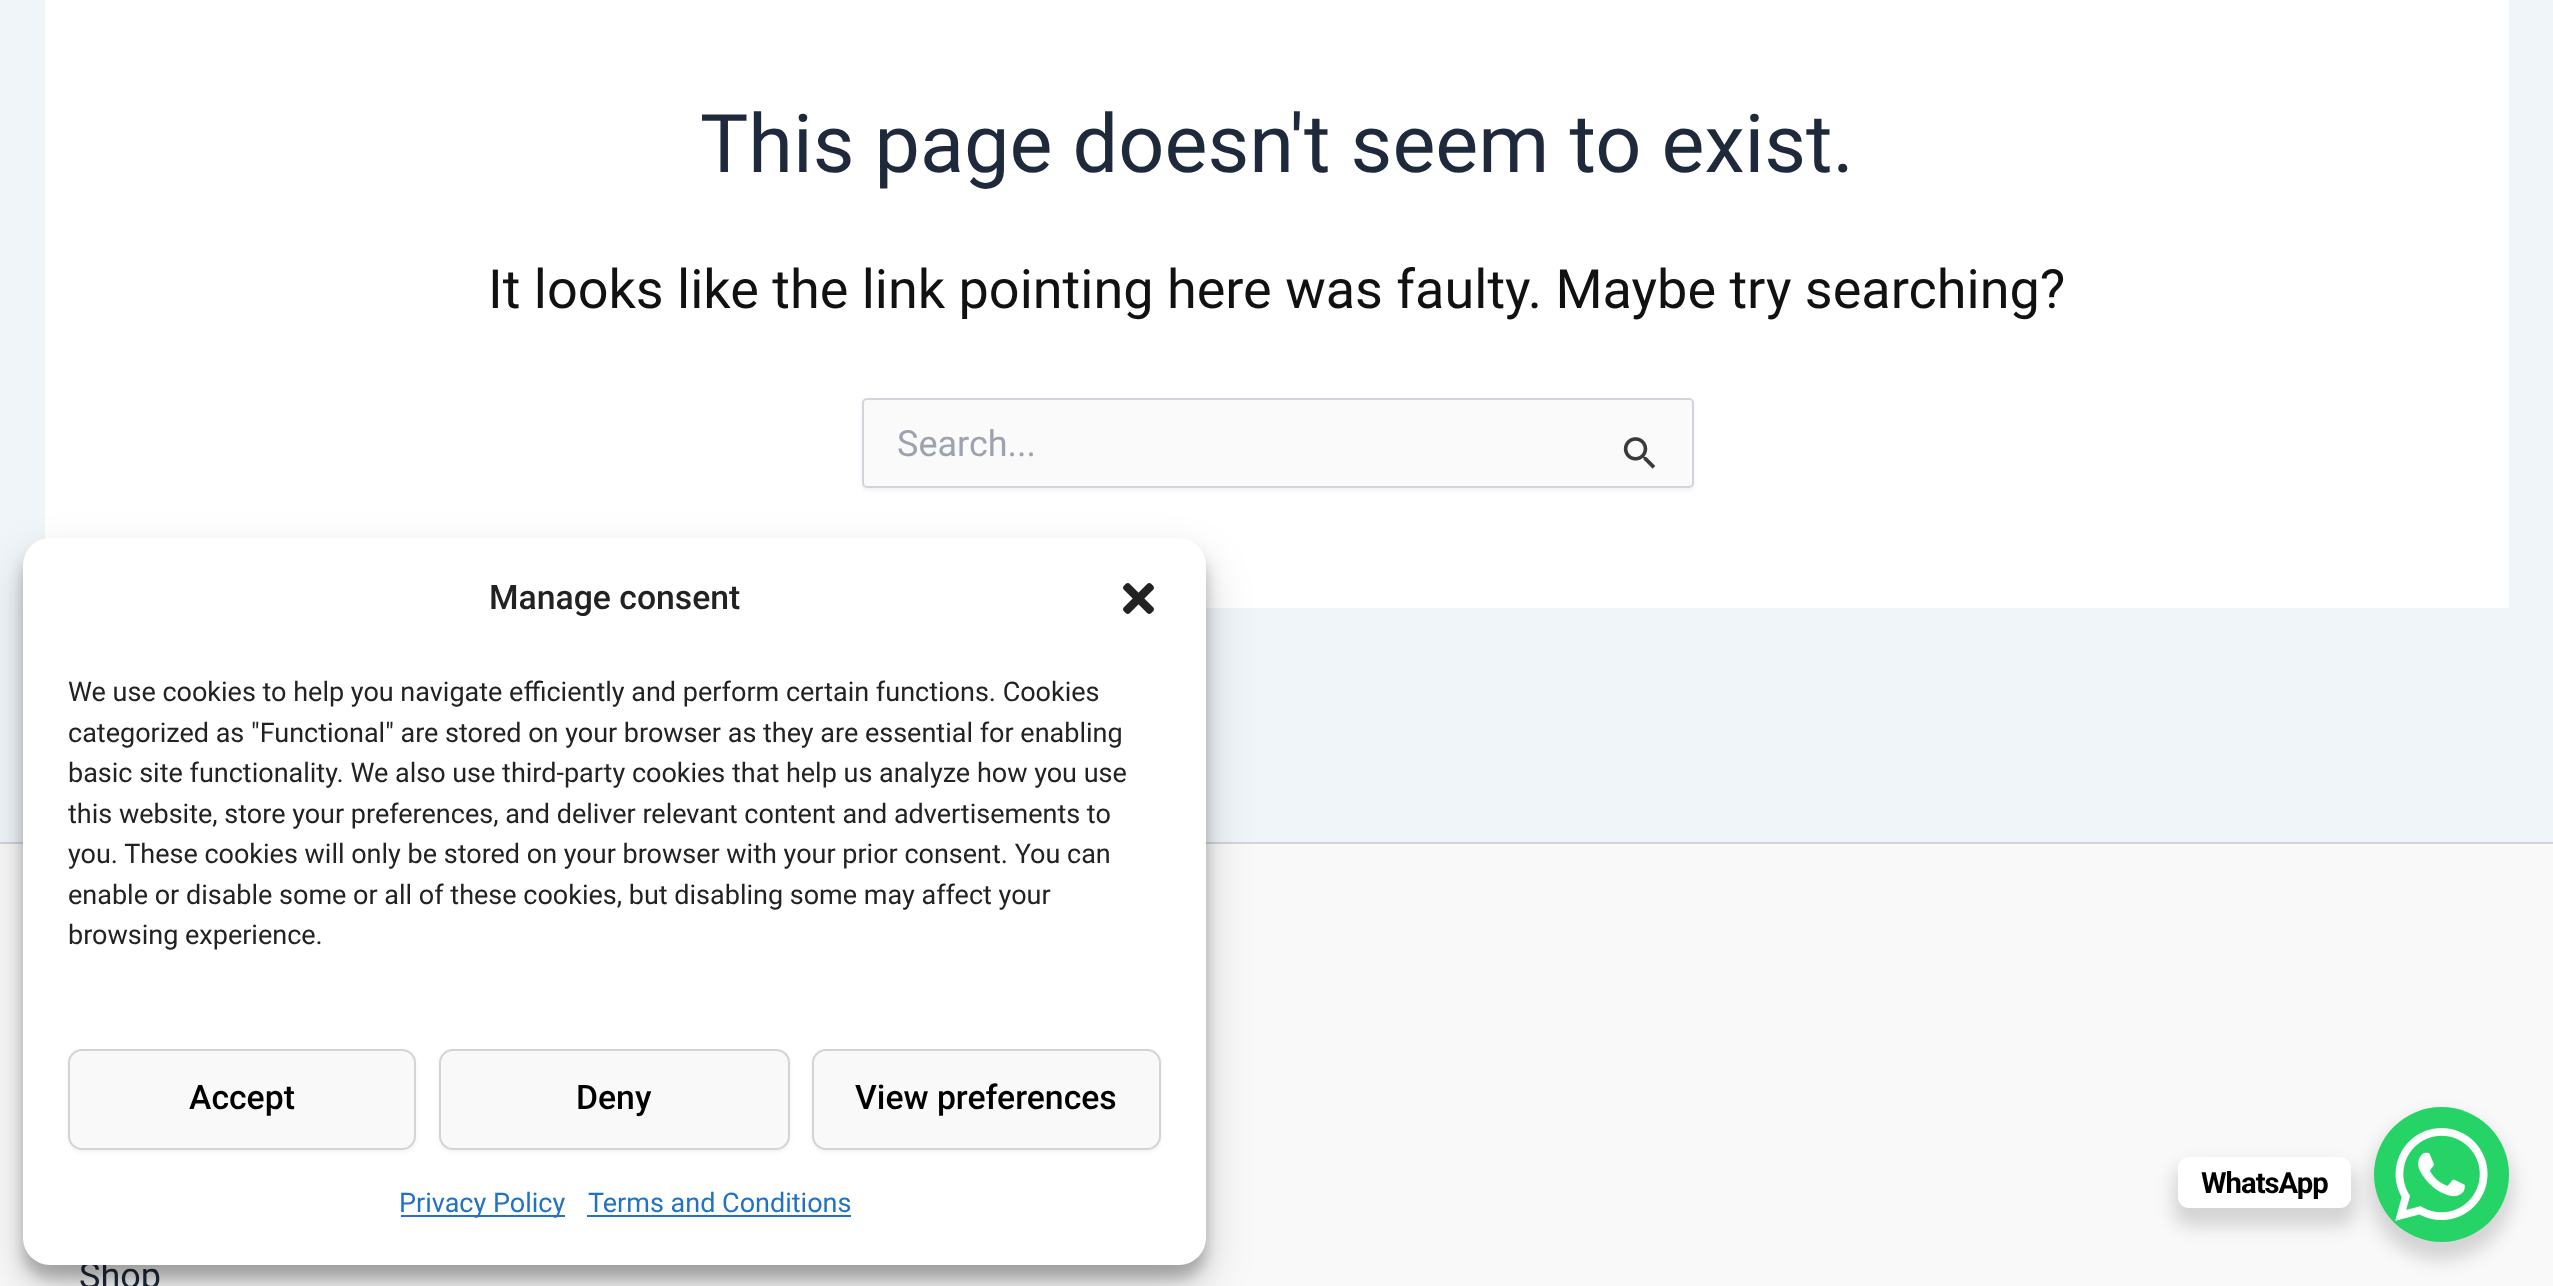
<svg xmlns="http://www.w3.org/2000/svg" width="2553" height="1286">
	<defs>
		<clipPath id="clip1"><rect x="68" y="673" width="1093" height="331" /></clipPath>
	</defs>
	<rect width="100%" height="100%" fill="#F0F5FA" />
	<rect x="45" y="0" width="2464" height="608" fill="#FFFFFF" />
	<text x="700" y="172" font-family="Roboto" font-size="81" fill="#1E293B">This page doesn't seem to exist.</text>
	<text x="488" y="308" font-family="Roboto" font-size="54" fill="#111111">It looks like the link pointing here was faulty. Maybe try searching?</text>
	<rect x="862" y="401" width="832" height="90" rx="5" fill="#000000" fill-opacity="0.05" filter="blur(2px)" />
	<rect x="863" y="399" width="830" height="88" rx="4" fill="#FAFAFA" stroke="#D1D5DB" stroke-width="2" />
	<text x="897" y="456" font-family="Roboto" font-size="36" fill="#9CA3AF">Search...</text>
	<image x="1623" y="437" width="33" height="32" href="assets/img1.png" />
	<rect x="0" y="844" width="2553" height="442" fill="#F9F9F9" />
	<rect x="0" y="842" width="2553" height="2" fill="#D1D5DB" />
	<text x="79" y="1288" font-family="Roboto" font-size="36" fill="#1E293B">Shop</text>
	<rect x="23" y="551" width="1183" height="727" rx="27" fill="#000000" fill-opacity="0.23" filter="blur(7px)" />
	<rect x="23" y="560" width="1183" height="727" rx="27" fill="#000000" fill-opacity="0.19" filter="blur(22.5px)" />
	<rect x="23" y="538" width="1183" height="727" rx="27" fill="#FFFFFF" />
	<text x="489" y="609" font-family="Roboto" font-size="33.75" font-weight="500" fill="#222222">Manage consent</text>
	<image x="1123" y="583" width="31" height="31" href="assets/img2.png" />
	<g font-family="Roboto" font-size="27" fill="#222222">
		<text x="68" y="701">We use cookies to help you navigate efficiently and perform certain functions. Cookies</text>
		<text x="68" y="742">categorized as "Functional" are stored on your browser as they are essential for enabling</text>
		<text x="68" y="782">basic site functionality. We also use third-party cookies that help us analyze how you use</text>
	</g>
	<g clip-path="url(#clip1)">
		<text x="68" y="823" font-family="Roboto" font-size="27" fill="#222222">this website, store your preferences, and deliver relevant content and advertisements to</text>
	</g>
	<g font-family="Roboto" font-size="27" fill="#222222">
		<text x="68" y="863">you. These cookies will only be stored on your browser with your prior consent. You can</text>
		<text x="68" y="904">enable or disable some or all of these cookies, but disabling some may affect your</text>
		<text x="68" y="944">browsing experience.</text>
	</g>
	<rect x="68" y="1051" width="348" height="101" rx="14" fill="#000000" fill-opacity="0.05" filter="blur(2px)" />
	<rect x="69" y="1050" width="346" height="99" rx="13" fill="#F9F9F9" stroke="#D4D4D4" stroke-width="2" />
	<text x="189" y="1109" font-family="Roboto" font-size="33.75" font-weight="500" fill="#000000">Accept</text>
	<rect x="439" y="1051" width="351" height="101" rx="14" fill="#000000" fill-opacity="0.05" filter="blur(2px)" />
	<rect x="440" y="1050" width="349" height="99" rx="13" fill="#F9F9F9" stroke="#D4D4D4" stroke-width="2" />
	<text x="576" y="1109" font-family="Roboto" font-size="33.75" font-weight="500" fill="#000000">Deny</text>
	<rect x="812" y="1051" width="349" height="101" rx="14" fill="#000000" fill-opacity="0.05" filter="blur(2px)" />
	<rect x="813" y="1050" width="347" height="99" rx="13" fill="#F9F9F9" stroke="#D4D4D4" stroke-width="2" />
	<text x="855" y="1109" font-family="Roboto" font-size="33.75" font-weight="500" fill="#000000">View preferences</text>
	<rect x="401" y="1215" width="164" height="2" fill="#2272C3" />
	<g font-family="Roboto" font-size="27" fill="#2272C3">
		<text x="399" y="1212">Privacy Policy</text>
		<text x="588" y="1212">Terms and Conditions</text>
	</g>
	<rect x="587" y="1215" width="264" height="2" fill="#2272C3" />
	<rect x="2369" y="1116" width="144" height="144" rx="72" fill="#000000" fill-opacity="0.15" filter="blur(9px)" />
	<circle cx="2441.5" cy="1174.5" r="67.5" fill="#25D366" />
	<rect x="2174" y="1166" width="182" height="60" rx="16" fill="#000000" fill-opacity="0.15" filter="blur(9px)" />
	<rect x="2178" y="1157" width="173" height="51" rx="11" fill="#FFFFFF" />
	<text x="2201" y="1193" font-family="Roboto" font-size="29.25" font-weight="700" letter-spacing="-1" fill="#000000">WhatsApp</text>
	<image x="2395" y="1128" width="93" height="93" href="assets/img3.png" />
</svg>
